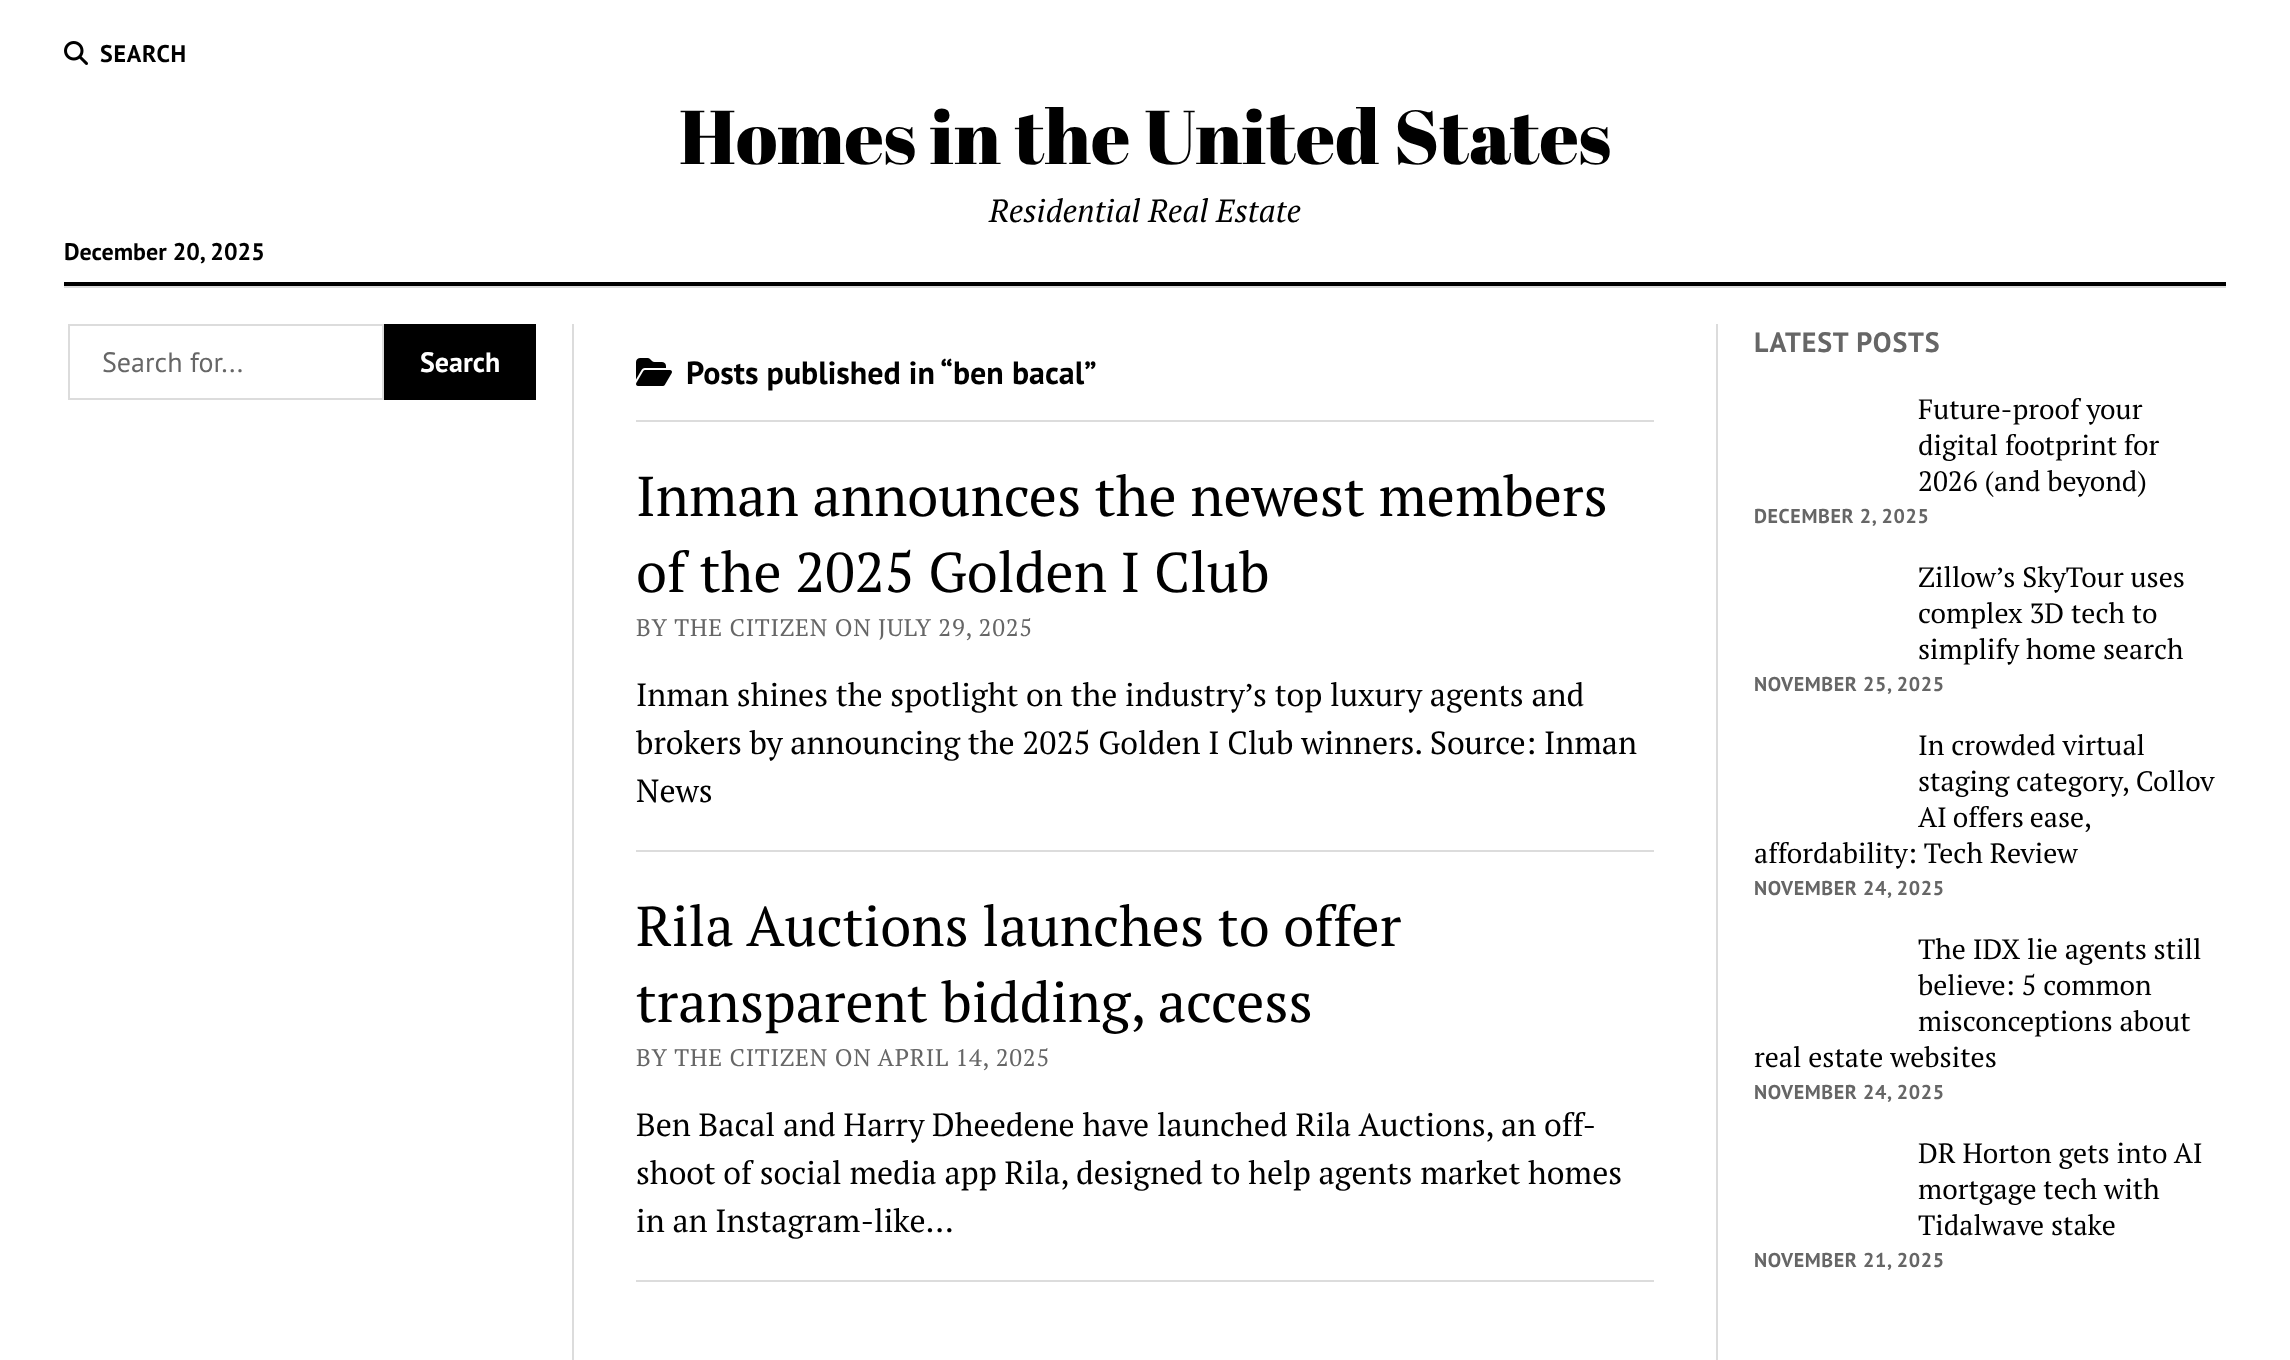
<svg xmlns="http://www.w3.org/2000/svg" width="2290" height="1360">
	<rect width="100%" height="100%" fill="#FFFFFF" />
	<image x="64" y="41" width="24" height="24" href="assets/img1.png" />
	<text x="100" y="62" font-family="PT Sans" font-size="24" font-weight="700" letter-spacing="0.75" fill="#000000">SEARCH</text>
	<text x="679" y="164" font-family="Abril Fatface" font-size="76" fill="#000000">Homes in the United States</text>
	<text x="989" y="222" font-family="PT Serif" font-size="32" font-style="italic" fill="#000000">Residential Real Estate</text>
	<text x="64" y="260" font-family="PT Sans" font-size="24" font-weight="700" fill="#000000">December 20, 2025</text>
	<rect x="64" y="282" width="2162" height="4" fill="#000000" />
	<rect x="64" y="286" width="2162" height="2" fill="#DCDCDC" />
	<rect x="572" y="324" width="2" height="1036" fill="#DCDCDC" />
	<rect x="1716" y="324" width="2" height="1036" fill="#DCDCDC" />
	<rect x="69" y="325" width="314" height="74" fill="none" stroke="#DCDCDC" stroke-width="2" />
	<text x="102" y="372" font-family="PT Sans" font-size="28" fill="#666666">Search for...</text>
	<rect x="384" y="324" width="152" height="76" fill="#000000" />
	<text x="420" y="372" font-family="PT Sans" font-size="28" font-weight="700" fill="#FFFFFF">Search</text>
	<rect x="636" y="420" width="1018" height="2" fill="#DCDCDC" />
	<image x="636" y="358" width="36" height="28" href="assets/img2.png" />
	<text x="686" y="384" font-family="PT Sans" font-size="32" font-weight="700" fill="#000000">Posts published in “ben bacal”</text>
	<rect x="636" y="850" width="1018" height="2" fill="#DCDCDC" />
	<g font-family="PT Serif" font-size="56" fill="#000000">
		<text x="636" y="516">Inman announces the newest members</text>
		<text x="636" y="592">of the 2025 Golden I Club</text>
	</g>
	<text x="636" y="636" font-family="PT Serif" font-size="24" letter-spacing="0.75" fill="#666666">BY THE CITIZEN ON JULY 29, 2025</text>
	<g font-family="PT Serif" font-size="32" fill="#000000">
		<text x="636" y="706">Inman shines the spotlight on the industry’s top luxury agents and</text>
		<text x="636" y="754">brokers by announcing the 2025 Golden I Club winners. Source: Inman</text>
		<text x="636" y="802">News</text>
	</g>
	<rect x="636" y="1280" width="1018" height="2" fill="#DCDCDC" />
	<g font-family="PT Serif" font-size="56" fill="#000000">
		<text x="636" y="946">Rila Auctions launches to offer</text>
		<text x="636" y="1022">transparent bidding, access</text>
	</g>
	<text x="636" y="1066" font-family="PT Serif" font-size="24" letter-spacing="0.75" fill="#666666">BY THE CITIZEN ON APRIL 14, 2025</text>
	<g font-family="PT Serif" font-size="32" fill="#000000">
		<text x="636" y="1136">Ben Bacal and Harry Dheedene have launched Rila Auctions, an off-</text>
		<text x="636" y="1184">shoot of social media app Rila, designed to help agents market homes</text>
		<text x="636" y="1232">in an Instagram-like…</text>
	</g>
	<text x="1754" y="352" font-family="PT Sans" font-size="28" font-weight="700" letter-spacing="0.8" fill="#666666">LATEST POSTS</text>
	<g font-family="PT Serif" font-size="28" fill="#000000">
		<text x="1918" y="419">Future-proof your</text>
		<text x="1918" y="455">digital footprint for</text>
		<text x="1918" y="491">2026 (and beyond)</text>
	</g>
	<text x="1754" y="523" font-family="PT Sans" font-size="20" font-weight="700" letter-spacing="0.6" fill="#666666">DECEMBER 2, 2025</text>
	<g font-family="PT Serif" font-size="28" fill="#000000">
		<text x="1918" y="587">Zillow’s SkyTour uses</text>
		<text x="1918" y="623">complex 3D tech to</text>
		<text x="1918" y="659">simplify home search</text>
	</g>
	<text x="1754" y="691" font-family="PT Sans" font-size="20" font-weight="700" letter-spacing="0.6" fill="#666666">NOVEMBER 25, 2025</text>
	<g font-family="PT Serif" font-size="28" fill="#000000">
		<text x="1918" y="755">In crowded virtual</text>
		<text x="1918" y="791">staging category, Collov</text>
		<text x="1918" y="827" word-spacing="-1">AI offers ease,</text>
		<text x="1754" y="863">affordability: Tech Review</text>
	</g>
	<text x="1754" y="895" font-family="PT Sans" font-size="20" font-weight="700" letter-spacing="0.6" fill="#666666">NOVEMBER 24, 2025</text>
	<g font-family="PT Serif" font-size="28" fill="#000000">
		<text x="1918" y="959">The IDX lie agents still</text>
		<text x="1918" y="995">believe: 5 common</text>
		<text x="1918" y="1031">misconceptions about</text>
		<text x="1754" y="1067">real estate websites</text>
	</g>
	<text x="1754" y="1099" font-family="PT Sans" font-size="20" font-weight="700" letter-spacing="0.6" fill="#666666">NOVEMBER 24, 2025</text>
	<g font-family="PT Serif" font-size="28" fill="#000000">
		<text x="1918" y="1163">DR Horton gets into AI</text>
		<text x="1918" y="1199">mortgage tech with</text>
		<text x="1918" y="1235">Tidalwave stake</text>
	</g>
	<text x="1754" y="1267" font-family="PT Sans" font-size="20" font-weight="700" letter-spacing="0.6" fill="#666666">NOVEMBER 21, 2025</text>
</svg>
